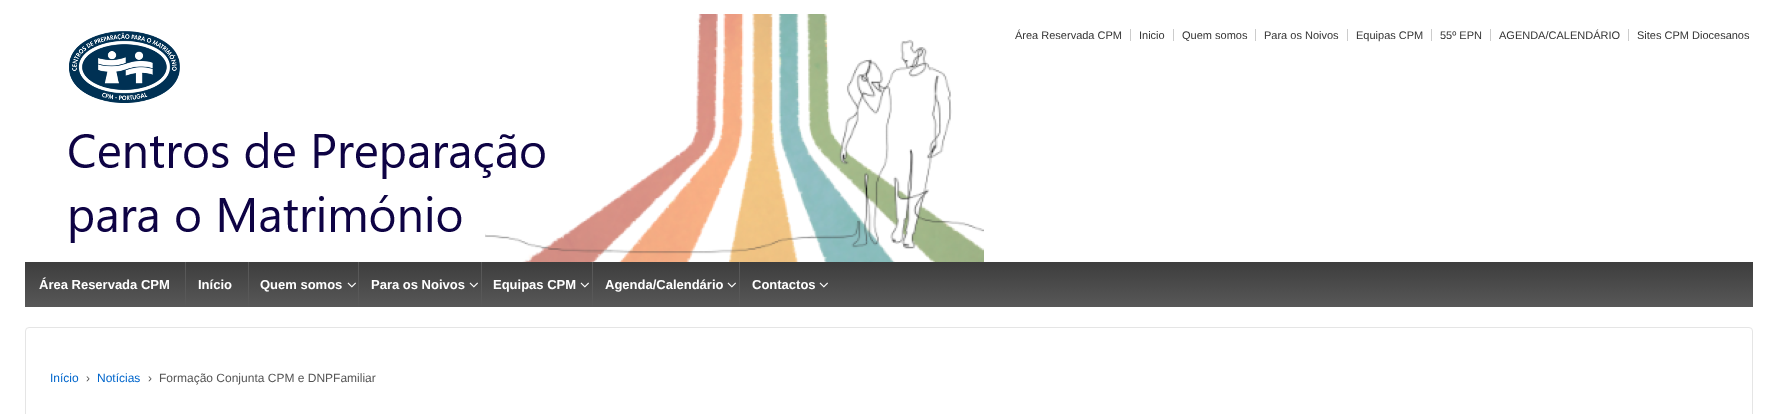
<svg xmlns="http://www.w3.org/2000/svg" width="1778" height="414">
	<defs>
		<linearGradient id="g1" gradientUnits="userSpaceOnUse" x1="889" y1="307" x2="889" y2="262"><stop offset="0" stop-color="#585858" /><stop offset="1" stop-color="#3D3D3D" /></linearGradient>
	</defs>
	<rect width="100%" height="100%" fill="#FFFFFF" />
	<image x="69" y="14" width="915" height="248" href="assets/img1.png" />
	<g font-family="Liberation Sans" font-size="11" fill="#333333">
		<text x="1015" y="39">Área Reservada CPM</text>
		<text x="1139" y="39">Inicio</text>
	</g>
	<rect x="1130" y="29" width="1" height="12" fill="#CCCCCC" />
	<text x="1182" y="39" font-family="Liberation Sans" font-size="11" fill="#333333">Quem somos</text>
	<rect x="1173" y="29" width="1" height="12" fill="#CCCCCC" />
	<text x="1264" y="39" font-family="Liberation Sans" font-size="11" fill="#333333">Para os Noivos</text>
	<rect x="1255" y="29" width="1" height="12" fill="#CCCCCC" />
	<text x="1356" y="39" font-family="Liberation Sans" font-size="11" fill="#333333">Equipas CPM</text>
	<rect x="1347" y="29" width="1" height="12" fill="#CCCCCC" />
	<text x="1440" y="39" font-family="Liberation Sans" font-size="11" fill="#333333">55º EPN</text>
	<rect x="1431" y="29" width="1" height="12" fill="#CCCCCC" />
	<text x="1499" y="39" font-family="Liberation Sans" font-size="11" fill="#333333">AGENDA/CALENDÁRIO</text>
	<rect x="1490" y="29" width="1" height="12" fill="#CCCCCC" />
	<text x="1637" y="39" font-family="Liberation Sans" font-size="11" fill="#333333">Sites CPM Diocesanos</text>
	<rect x="1628" y="29" width="1" height="12" fill="#CCCCCC" />
	<rect x="25" y="262" width="1728" height="45" fill="url(#g1)" />
	<text x="39" y="289" font-family="Liberation Sans" font-size="13" font-weight="700" fill="#FFFFFF">Área Reservada CPM</text>
	<rect x="185" y="262" width="1" height="45" fill="#585858" />
	<text x="198" y="289" font-family="Liberation Sans" font-size="13" font-weight="700" fill="#FFFFFF">Início</text>
	<rect x="248" y="262" width="1" height="45" fill="#585858" />
	<text x="260" y="289" font-family="Liberation Sans" font-size="13" font-weight="700" fill="#FFFFFF">Quem somos</text>
	<image x="347" y="282" width="9" height="6" href="assets/img2.png" />
	<rect x="358" y="262" width="1" height="45" fill="#585858" />
	<text x="371" y="289" font-family="Liberation Sans" font-size="13" font-weight="700" fill="#FFFFFF">Para os Noivos</text>
	<image x="469" y="282" width="9" height="6" href="assets/img2.png" />
	<rect x="481" y="262" width="1" height="45" fill="#585858" />
	<text x="493" y="289" font-family="Liberation Sans" font-size="13" font-weight="700" fill="#FFFFFF">Equipas CPM</text>
	<image x="580" y="282" width="9" height="6" href="assets/img2.png" />
	<rect x="592" y="262" width="1" height="45" fill="#585858" />
	<text x="605" y="289" font-family="Liberation Sans" font-size="13" font-weight="700" fill="#FFFFFF">Agenda/Calendário</text>
	<image x="727" y="282" width="9" height="6" href="assets/img2.png" />
	<rect x="739" y="262" width="1" height="45" fill="#585858" />
	<text x="752" y="289" font-family="Liberation Sans" font-size="13" font-weight="700" fill="#FFFFFF">Contactos</text>
	<image x="819" y="282" width="9" height="6" href="assets/img2.png" />
	<rect x="25.5" y="327.5" width="1727" height="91" rx="3.5" fill="none" stroke="#E5E5E5" />
	<text x="50" y="382" font-family="Liberation Sans" font-size="12" fill="#0066CC">Início</text>
	<text x="86" y="382" font-family="Liberation Sans" font-size="12" fill="#555555">›</text>
	<text x="97" y="382" font-family="Liberation Sans" font-size="12" fill="#0066CC">Notícias</text>
	<g font-family="Liberation Sans" font-size="12" fill="#555555">
		<text x="148" y="382">›</text>
		<text x="159" y="382">Formação Conjunta CPM e DNPFamiliar</text>
	</g>
</svg>
